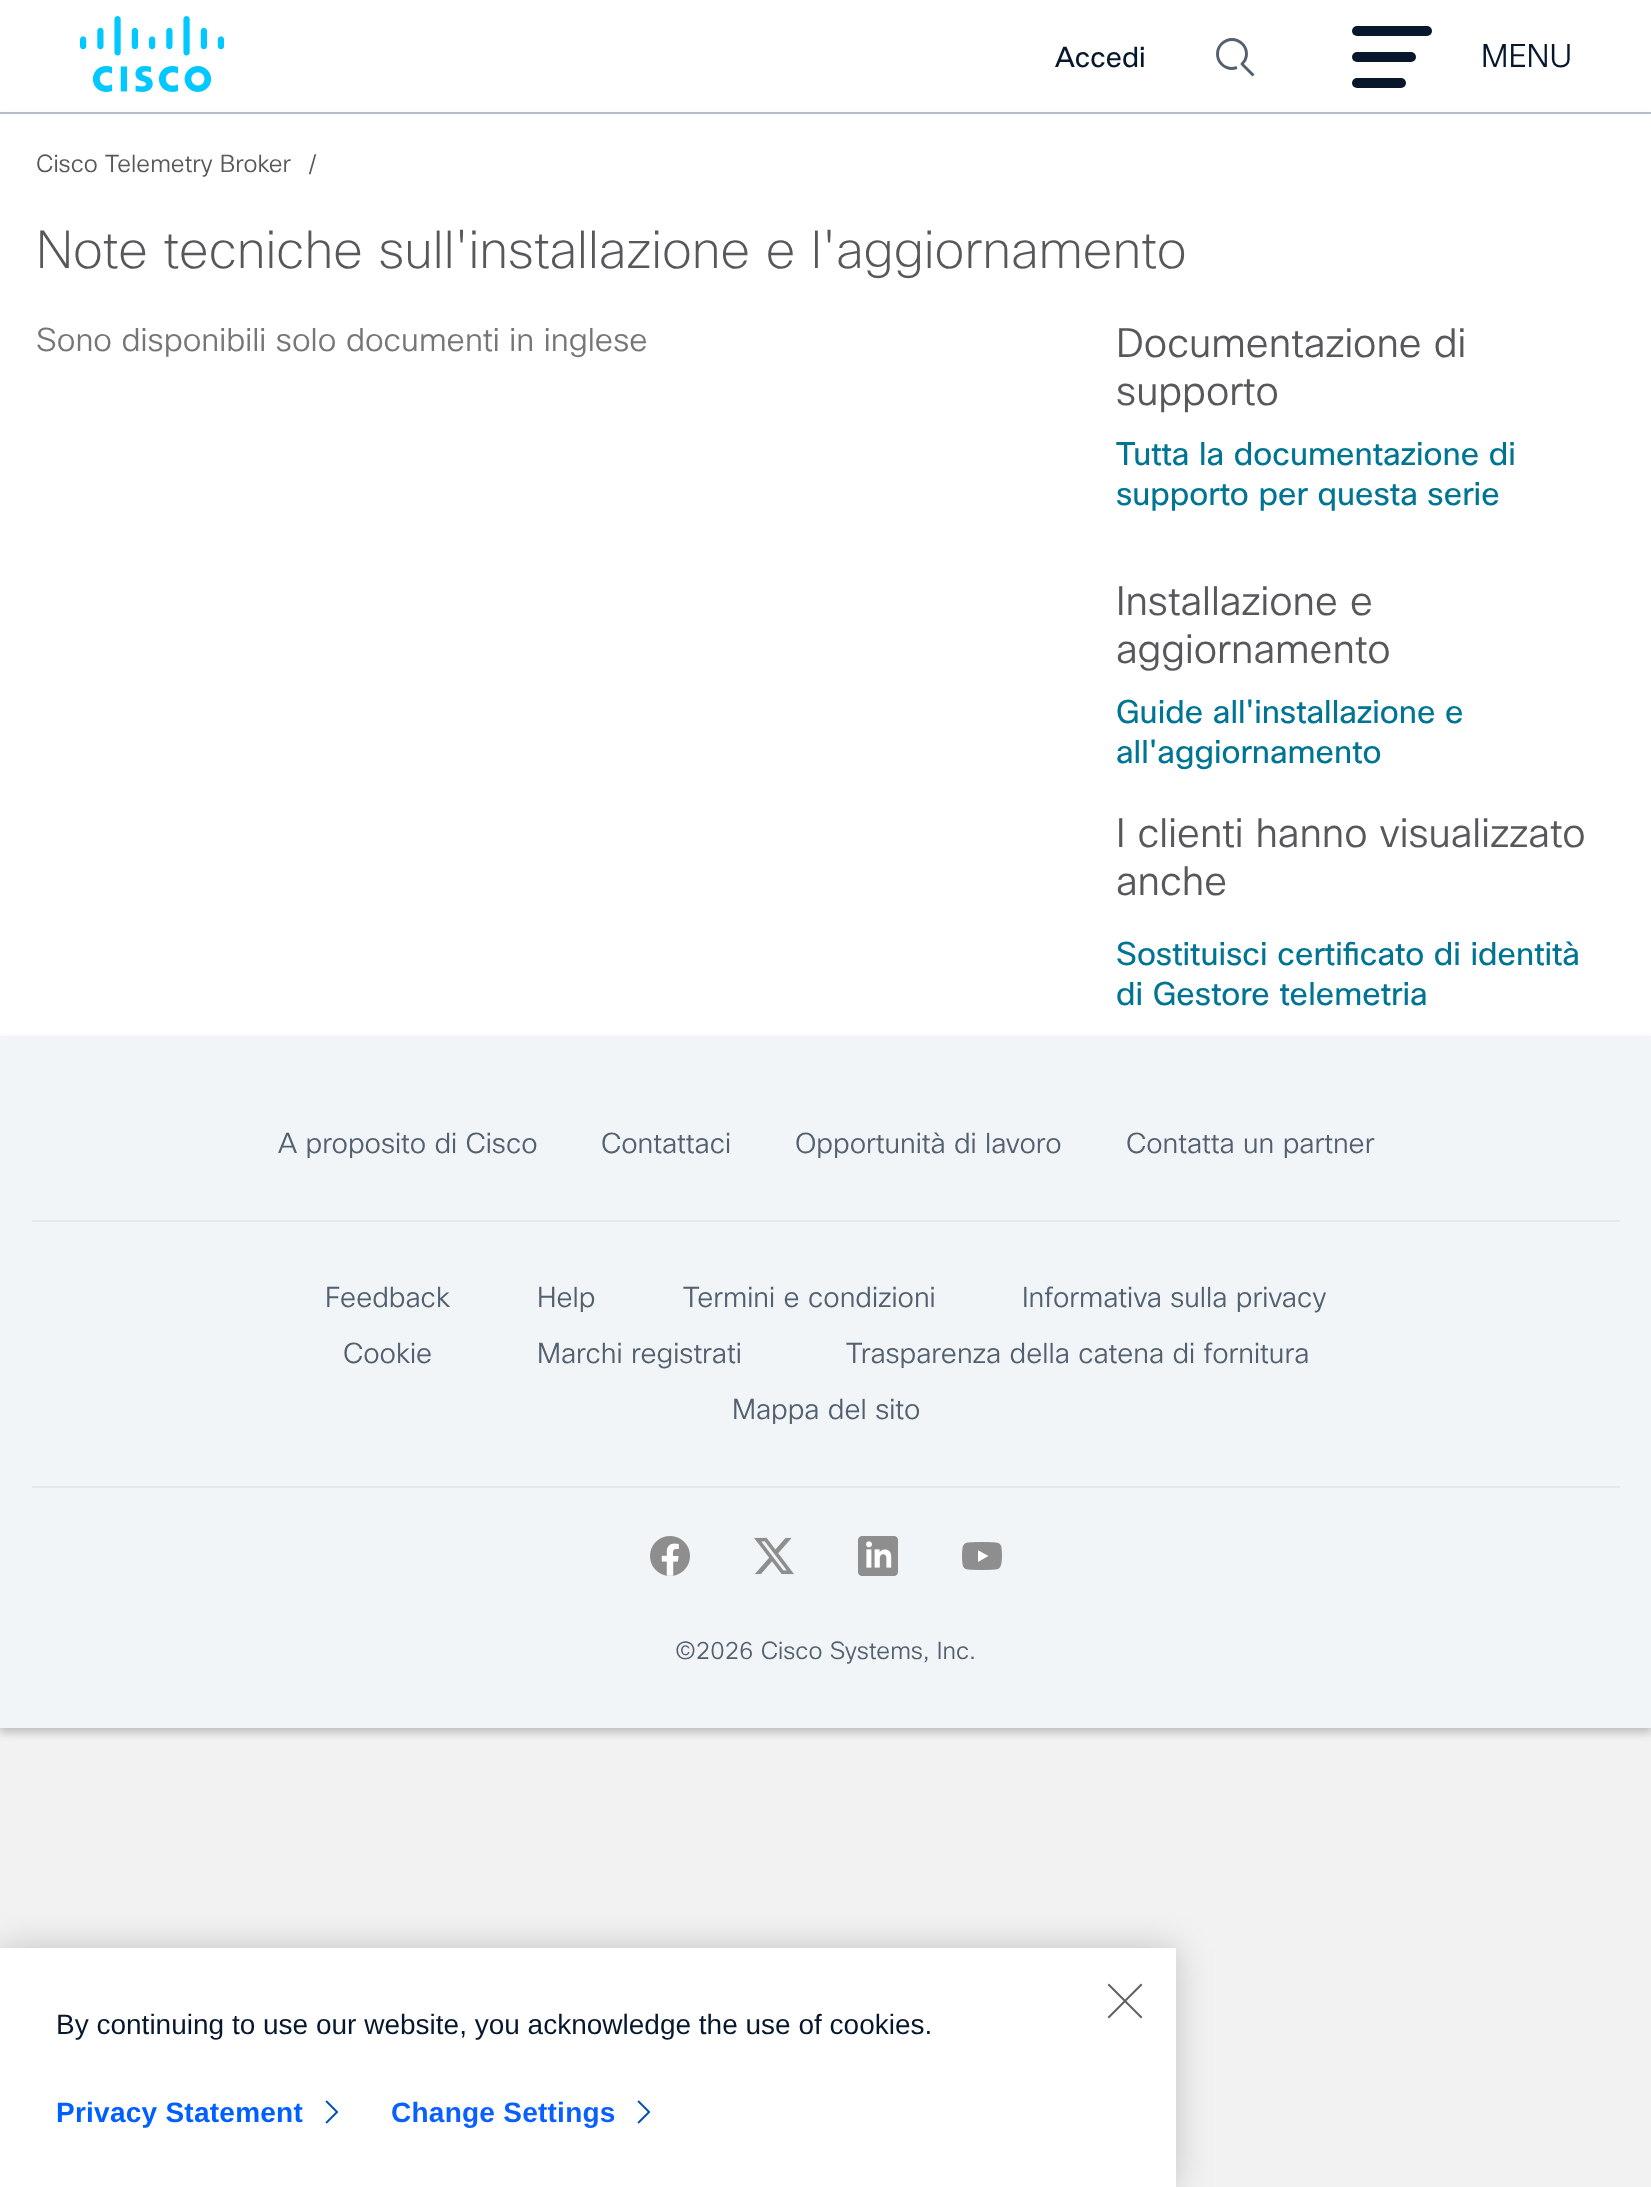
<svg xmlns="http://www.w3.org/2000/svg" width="1651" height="2187">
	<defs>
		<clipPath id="clip1"><path d="M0 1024H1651V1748H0ZM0 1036H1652V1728H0Z" clip-rule="evenodd" /></clipPath>
	</defs>
	<rect width="100%" height="100%" fill="#F2F2F2" />
	<rect x="0" y="0" width="1651" height="112" fill="#FFFFFF" />
	<rect x="0" y="112" width="1651" height="2" fill="#B9C1C9" />
	<image x="80" y="16" width="144" height="76" href="assets/img1.png" />
	<text x="1055" y="67" font-family="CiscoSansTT" font-size="28" fill="#07182D">Accedi</text>
	<path d="M1237 67.5C1235.5 68 1233.5 68.5 1232 68.5C1224 68.5 1217.5 62 1217.5 54C1217.5 46 1224 39.5 1232 39.5C1240 39.5 1246.5 46 1246.5 54C1246.5 58 1244.5 61.5 1242 64L1253.5 75.5" fill="none" stroke="#536070" stroke-width="2.9" stroke-linejoin="round" />
	<rect x="1352" y="26" width="80" height="10" rx="5" fill="#07182D" />
	<rect x="1352" y="52" width="64" height="10" rx="5" fill="#07182D" />
	<rect x="1352" y="78" width="54" height="10" rx="5" fill="#07182D" />
	<text x="1481" y="67" font-family="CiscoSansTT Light" font-size="32" font-weight="300" fill="#07182D">MENU</text>
	<rect x="0" y="118" width="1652" height="1614" fill="#000000" fill-opacity="0.12" filter="blur(5px)" />
	<rect x="0" y="114" width="1651" height="922" fill="#FFFFFF" />
	<g font-family="CiscoSansTT Light" font-size="24" font-weight="300" fill="#58585B">
		<text x="36" y="172">Cisco Telemetry Broker</text>
		<text x="308" y="172">/</text>
	</g>
	<text x="36" y="268" font-family="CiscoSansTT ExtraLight" font-size="52" font-weight="200" fill="#58585B">Note tecniche sull'installazione e l'aggiornamento</text>
	<text x="36" y="351" font-family="CiscoSansTT Light" font-size="32" font-weight="300" fill="#767676">Sono disponibili solo documenti in inglese</text>
	<g font-family="CiscoSansTT Light" font-size="40" font-weight="300" fill="#58585B">
		<text x="1116" y="357">Documentazione di</text>
		<text x="1116" y="405">supporto</text>
	</g>
	<g font-family="CiscoSansTT" font-size="32" fill="#007493">
		<text x="1116" y="465">Tutta la documentazione di</text>
		<text x="1116" y="505">supporto per questa serie</text>
	</g>
	<g font-family="CiscoSansTT Light" font-size="40" font-weight="300" fill="#58585B">
		<text x="1116" y="615">Installazione e</text>
		<text x="1116" y="663">aggiornamento</text>
	</g>
	<g font-family="CiscoSansTT" font-size="32" fill="#007493">
		<text x="1116" y="723">Guide all'installazione e</text>
		<text x="1116" y="763">all'aggiornamento</text>
	</g>
	<g font-family="CiscoSansTT Light" font-size="40" font-weight="300" fill="#58585B">
		<text x="1116" y="847">I clienti hanno visualizzato</text>
		<text x="1116" y="895">anche</text>
	</g>
	<g font-family="CiscoSansTT" font-size="32" fill="#007493">
		<text x="1116" y="965">Sostituisci certificato di identità</text>
		<text x="1116" y="1005">di Gestore telemetria</text>
	</g>
	<rect x="0" y="1036" width="1651" height="692" fill="#F2F5F7" />
	<g clip-path="url(#clip1)">
		<rect x="0" y="1040" width="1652" height="692" fill="#000000" fill-opacity="0.12" filter="blur(5px)" />
	</g>
	<g font-family="CiscoSansTT Light" font-size="28" font-weight="300" fill="#536070">
		<text x="278" y="1153">A proposito di Cisco</text>
		<text x="601" y="1153">Contattaci</text>
		<text x="795" y="1153">Opportunità di lavoro</text>
		<text x="1126" y="1153">Contatta un partner</text>
	</g>
	<rect x="32" y="1220" width="1588" height="2" fill="#E6E7E8" />
	<g font-family="CiscoSansTT Light" font-size="28" font-weight="300" fill="#536070">
		<text x="325" y="1307">Feedback</text>
		<text x="537" y="1307">Help</text>
		<text x="683" y="1307">Termini e condizioni</text>
		<text x="1022" y="1307">Informativa sulla privacy</text>
		<text x="343" y="1363">Cookie</text>
		<text x="537" y="1363">Marchi registrati</text>
		<text x="846" y="1363">Trasparenza della catena di fornitura</text>
		<text x="732" y="1419">Mappa del sito</text>
	</g>
	<rect x="32" y="1486" width="1588" height="2" fill="#E6E7E8" />
	<image x="650" y="1536" width="40" height="40" href="assets/img2.png" />
	<image x="754" y="1537" width="40" height="38" href="assets/img3.png" />
	<image x="858" y="1536" width="40" height="40" href="assets/img4.png" />
	<image x="962" y="1542" width="40" height="28" href="assets/img5.png" />
	<text x="675" y="1659" font-family="CiscoSansTT Light" font-size="24" font-weight="300" fill="#536070">©2026 Cisco Systems, Inc.</text>
	<rect x="0" y="1948" width="1176" height="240" fill="#000000" fill-opacity="0.2" filter="blur(18px)" />
	<rect x="0" y="1948" width="1176" height="239" fill="#FFFFFF" />
	<image x="1107" y="1983" width="36" height="36" href="assets/img6.png" />
	<text x="56" y="2034" font-family="Liberation Sans" font-size="28" fill="#07182D">By continuing to use our website, you acknowledge the use of cookies.</text>
	<text x="56" y="2122" font-family="Liberation Sans" font-size="28" font-weight="700" letter-spacing="0.25" fill="#0060FF">Privacy Statement</text>
	<image x="325" y="2100" width="13" height="24" href="assets/img7.png" />
	<text x="391" y="2122" font-family="Liberation Sans" font-size="28" font-weight="700" letter-spacing="0.25" fill="#0A60FF">Change Settings</text>
	<image x="637" y="2100" width="13" height="24" href="assets/img7.png" />
</svg>
